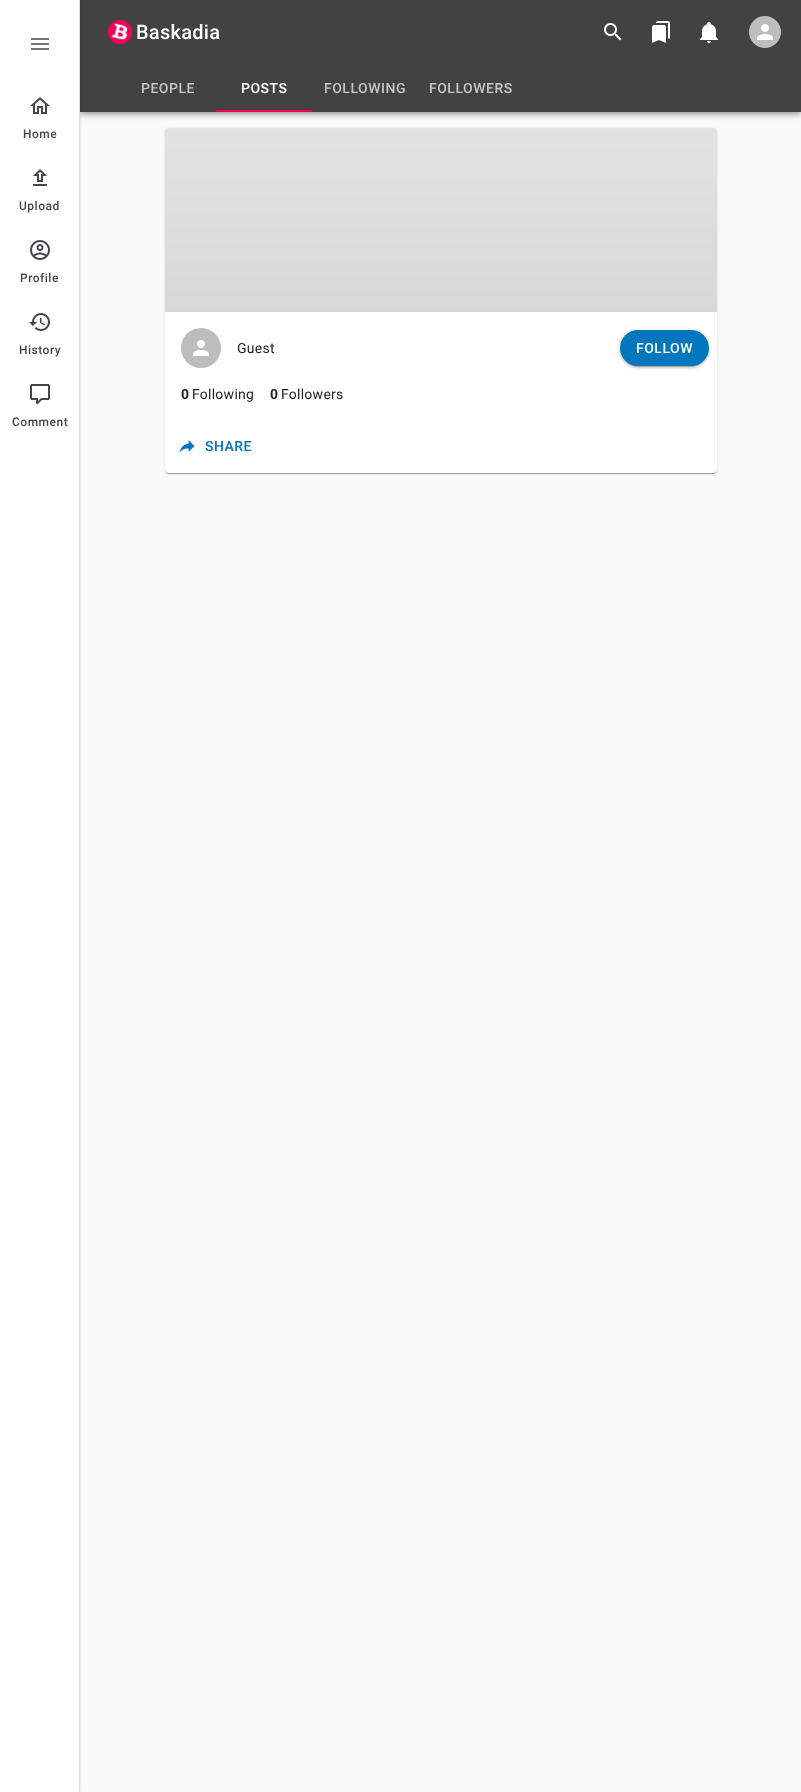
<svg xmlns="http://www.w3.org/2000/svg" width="801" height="1792">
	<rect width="100%" height="100%" fill="#FAFAFA" />
	<rect x="165" y="129" width="552" height="345" rx="4" fill="#000000" fill-opacity="0.12" filter="blur(1.5px)" />
	<rect x="165" y="129" width="552" height="345" rx="4" fill="#000000" fill-opacity="0.14" filter="blur(0.5px)" />
	<rect x="166" y="131" width="550" height="343" rx="3" fill="#000000" fill-opacity="0.2" filter="blur(0.5px)" />
	<rect x="165" y="128" width="552" height="345" rx="4" fill="#FFFFFF" />
	<image x="165" y="128" width="552" height="184" href="assets/img12.png" />
	<rect x="80" y="1" width="721" height="112" fill="#000000" fill-opacity="0.12" filter="blur(5px)" />
	<rect x="80" y="4" width="721" height="112" fill="#000000" fill-opacity="0.14" filter="blur(2.5px)" />
	<rect x="81" y="3" width="719" height="110" fill="#000000" fill-opacity="0.2" filter="blur(2px)" />
	<rect x="80" y="0" width="721" height="112" fill="#424242" />
	<image x="108" y="20" width="24" height="24" href="assets/img1.png" />
	<text x="136" y="39" font-family="Roboto" font-size="20" font-weight="500" letter-spacing="0.25" fill="#FFFFFF">Baskadia</text>
	<image x="604" y="23" width="18" height="18" href="assets/img2.png" />
	<image x="652" y="21" width="18" height="22" href="assets/img3.png" />
	<image x="700" y="22" width="18" height="21" href="assets/img4.png" />
	<circle cx="765" cy="32" r="16" fill="#BDBDBD" />
	<image x="757" y="24" width="16" height="16" href="assets/img5.png" />
	<text x="141" y="93" font-family="Roboto" font-size="14" font-weight="500" letter-spacing="0.5" fill="#C6C6C6">PEOPLE</text>
	<text x="241" y="93" font-family="Roboto" font-size="14" font-weight="500" letter-spacing="0.5" fill="#FFFFFF">POSTS</text>
	<g font-family="Roboto" font-size="14" font-weight="500" letter-spacing="0.5" fill="#C6C6C6">
		<text x="324" y="93">FOLLOWING</text>
		<text x="429" y="93">FOLLOWERS</text>
	</g>
	<rect x="216" y="110" width="96" height="2" fill="#F50057" />
	<rect x="0" y="1" width="80" height="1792" fill="#000000" fill-opacity="0.12" filter="blur(1.5px)" />
	<rect x="0" y="0" width="79" height="1792" fill="#FFFFFF" />
	<rect x="79" y="0" width="1" height="1792" fill="#E0E0E0" />
	<image x="31" y="38" width="18" height="12" href="assets/img6.png" />
	<image x="30" y="97" width="20" height="17" href="assets/img7.png" />
	<text x="23" y="138" font-family="Roboto" font-size="12" font-weight="500" letter-spacing="0.5" fill="#49454F">Home</text>
	<image x="33" y="169" width="14" height="17" href="assets/img8.png" />
	<text x="19" y="210" font-family="Roboto" font-size="12" font-weight="500" letter-spacing="0.5" fill="#49454F">Upload</text>
	<image x="30" y="240" width="20" height="20" href="assets/img9.png" />
	<text x="20" y="282" font-family="Roboto" font-size="12" font-weight="500" letter-spacing="0.5" fill="#49454F">Profile</text>
	<image x="29" y="313" width="21" height="18" href="assets/img10.png" />
	<text x="19" y="354" font-family="Roboto" font-size="12" font-weight="500" letter-spacing="0.5" fill="#49454F">History</text>
	<image x="30" y="384" width="20" height="20" href="assets/img11.png" />
	<text x="12" y="426" font-family="Roboto" font-size="12" font-weight="500" letter-spacing="0.5" fill="#49454F">Comment</text>
	<circle cx="201" cy="348" r="20" fill="#BDBDBD" />
	<image x="193" y="340" width="16" height="16" href="assets/img5.png" />
	<text x="237" y="353" font-family="Roboto" font-size="14" letter-spacing="0.25" fill="#212121">Guest</text>
	<rect x="620" y="331" width="89" height="36" rx="18" fill="#000000" fill-opacity="0.12" filter="blur(2.5px)" />
	<rect x="620" y="332" width="89" height="36" rx="18" fill="#000000" fill-opacity="0.14" filter="blur(1px)" />
	<rect x="622" y="335" width="85" height="32" rx="16" fill="#000000" fill-opacity="0.2" filter="blur(0.5px)" />
	<rect x="620" y="330" width="89" height="36" rx="18" fill="#0277BD" />
	<text x="636" y="353" font-family="Roboto" font-size="14" font-weight="500" letter-spacing="0.5" fill="#FFFFFF">FOLLOW</text>
	<text x="181" y="399" font-family="Roboto" font-size="14" font-weight="700" letter-spacing="0.25" fill="#212121">0</text>
	<text x="192" y="399" font-family="Roboto" font-size="14" letter-spacing="0.25" fill="#212121">Following</text>
	<text x="270" y="399" font-family="Roboto" font-size="14" font-weight="700" letter-spacing="0.25" fill="#212121">0</text>
	<text x="281" y="399" font-family="Roboto" font-size="14" letter-spacing="0.25" fill="#212121">Followers</text>
	<image x="179" y="440" width="16" height="13" href="assets/img13.png" />
	<text x="205" y="451" font-family="Roboto" font-size="14" font-weight="500" letter-spacing="0.5" fill="#0277BD">SHARE</text>
</svg>
